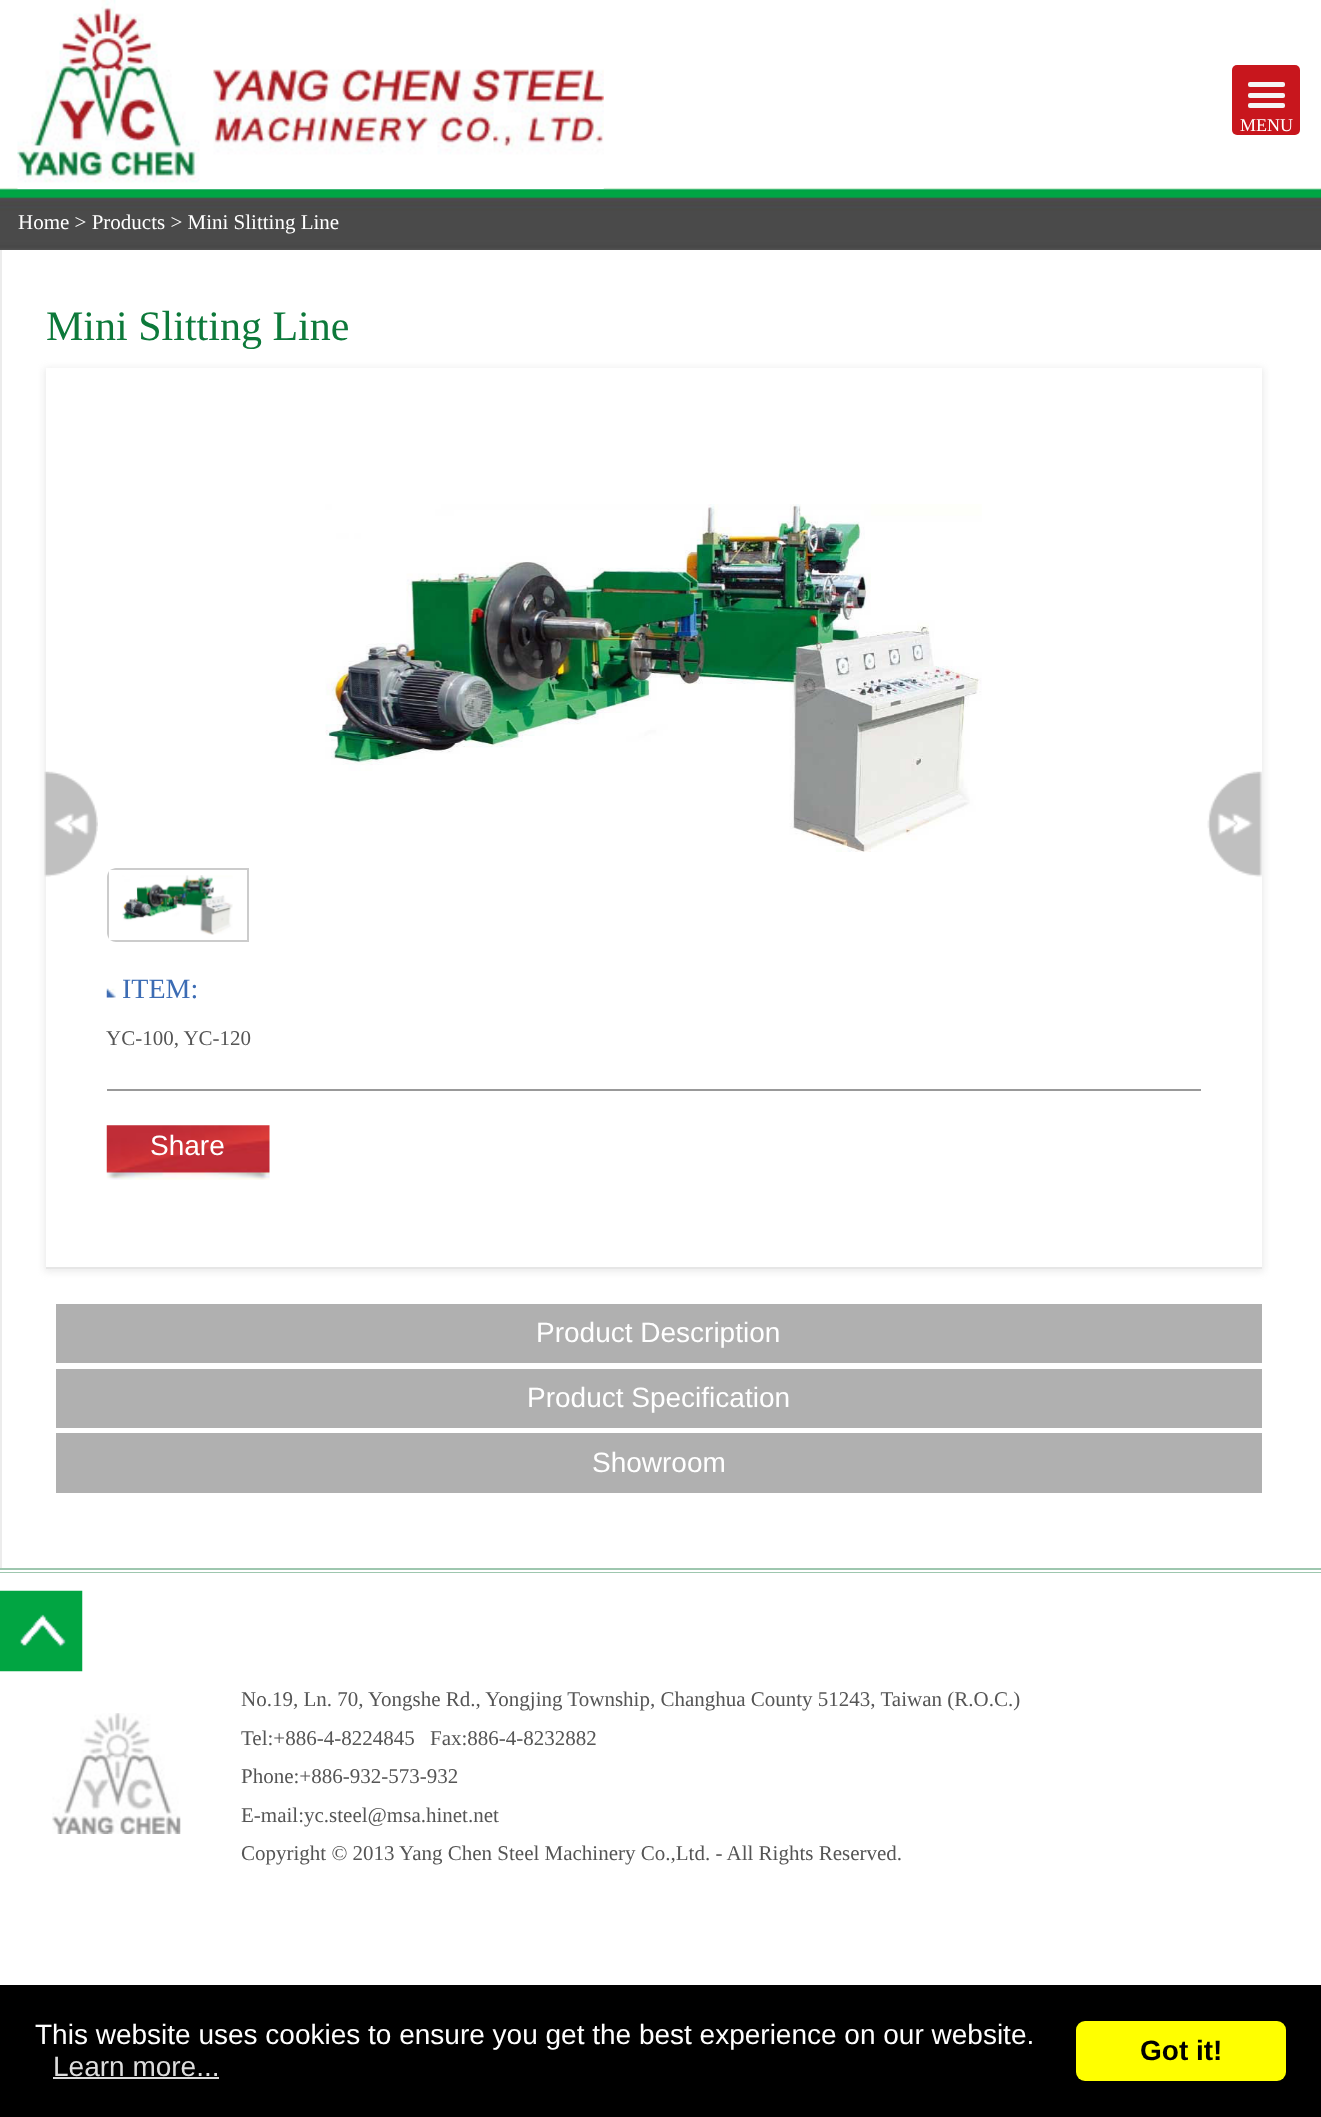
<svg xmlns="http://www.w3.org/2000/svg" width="1321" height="2117">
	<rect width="100%" height="100%" fill="#FFFFFF" />
	<image x="0" y="187" width="1321" height="63" href="assets/img1.png" />
	<image x="17" y="0" width="587" height="189" href="assets/img2.png" />
	<rect x="1232" y="65" width="68" height="70" rx="5" fill="#C8161D" />
	<rect x="1248" y="82" width="37" height="5" rx="2" fill="#F5F5F5" />
	<rect x="1248" y="93" width="37" height="5" rx="2" fill="#F5F5F5" />
	<rect x="1248" y="103" width="37" height="5" rx="2" fill="#F5F5F5" />
	<text x="1240" y="131" font-family="Liberation Serif" font-size="18" fill="#FFFFFF">MENU</text>
	<rect x="0" y="1568" width="1321" height="2" fill="#9EC7AF" />
	<rect x="0" y="1572" width="1321" height="1" fill="#9EC7AF" />
	<text x="18" y="229" font-family="Liberation Serif" font-size="21" fill="#FFFFFF">Home &gt; Products &gt; Mini Slitting Line</text>
	<rect x="0" y="250" width="2" height="1318" fill="#ECECEC" />
	<text x="46" y="340" font-family="Liberation Serif" font-size="42" fill="#0D793A">Mini Slitting Line</text>
	<rect x="44" y="368" width="1220" height="904" fill="#C1C1C1" fill-opacity="0.3" filter="blur(3.5px)" />
	<rect x="46" y="368" width="1216" height="899" fill="#FFFFFF" />
	<rect x="46" y="1267" width="1216" height="2" fill="#E6E6E6" />
	<image x="44" y="771" width="54" height="106" href="assets/img3.png" />
	<image x="325" y="504" width="657" height="348" href="assets/img4.png" />
	<path d="M116 868C114 868 112 869 110 870H247V940H110C112 941 114 942 116 942H249V868ZM109 939V871C108 873 107 875 107 877V933C107 935 108 937 109 939Z" fill="#CCCCCC" fill-rule="evenodd" />
	<image x="122" y="875" width="111" height="60" href="assets/img5.png" />
	<image x="1207" y="771" width="55" height="106" href="assets/img6.png" />
	<image x="106" y="988" width="10" height="10" href="assets/img7.png" />
	<text x="122" y="998" font-family="Liberation Serif" font-size="28" fill="#3C6CB4">ITEM:</text>
	<text x="106" y="1045" font-family="Liberation Serif" font-size="21" fill="#555555">YC-100, YC-120</text>
	<rect x="107" y="1089" width="1094" height="2" fill="#999999" />
	<image x="106" y="1125" width="164" height="55" href="assets/img8.png" />
	<text x="150" y="1155" font-family="Liberation Sans" font-size="28" fill="#FFFFFF">Share</text>
	<rect x="56" y="1304" width="1206" height="59" fill="#B0B0B0" />
	<text x="536" y="1342" font-family="Liberation Sans" font-size="28" fill="#FFFFFF">Product Description</text>
	<rect x="56" y="1369" width="1206" height="59" fill="#B0B0B0" />
	<text x="527" y="1407" font-family="Liberation Sans" font-size="28" fill="#FFFFFF">Product Specification</text>
	<rect x="56" y="1433" width="1206" height="60" fill="#B0B0B0" />
	<text x="592" y="1472" font-family="Liberation Sans" font-size="28" fill="#FFFFFF">Showroom</text>
	<image x="0" y="1590" width="83" height="82" href="assets/img9.png" />
	<image x="52" y="1713" width="129" height="121" href="assets/img10.png" />
	<g font-family="Liberation Serif" font-size="21" fill="#555555">
		<text x="241" y="1706">No.19, Ln. 70, Yongshe Rd., Yongjing Township, Changhua County 51243, Taiwan (R.O.C.)</text>
		<text x="241" y="1745">Tel:+886-4-8224845</text>
		<text x="430" y="1745">Fax:886-4-8232882</text>
		<text x="241" y="1783">Phone:+886-932-573-932</text>
		<text x="241" y="1822">E-mail:yc.steel@msa.hinet.net</text>
		<text x="241" y="1860">Copyright © 2013 Yang Chen Steel Machinery Co.,Ltd. - All Rights Reserved.</text>
	</g>
	<rect x="0" y="1985" width="1321" height="132" fill="#000000" />
	<text x="35" y="2044" font-family="Liberation Sans" font-size="28" fill="#FFFFFF">This website uses cookies to ensure you get the best experience on our website.</text>
	<text x="53" y="2076" font-family="Liberation Sans" font-size="28" fill="#DDDDDD">Learn more...</text>
	<rect x="53" y="2077" width="166" height="2" fill="#DDDDDD" />
	<rect x="1076" y="2021" width="210" height="60" rx="9" fill="#FFFF00" />
	<text x="1140" y="2060" font-family="Liberation Sans" font-size="28" font-weight="700" fill="#000000">Got it!</text>
</svg>
